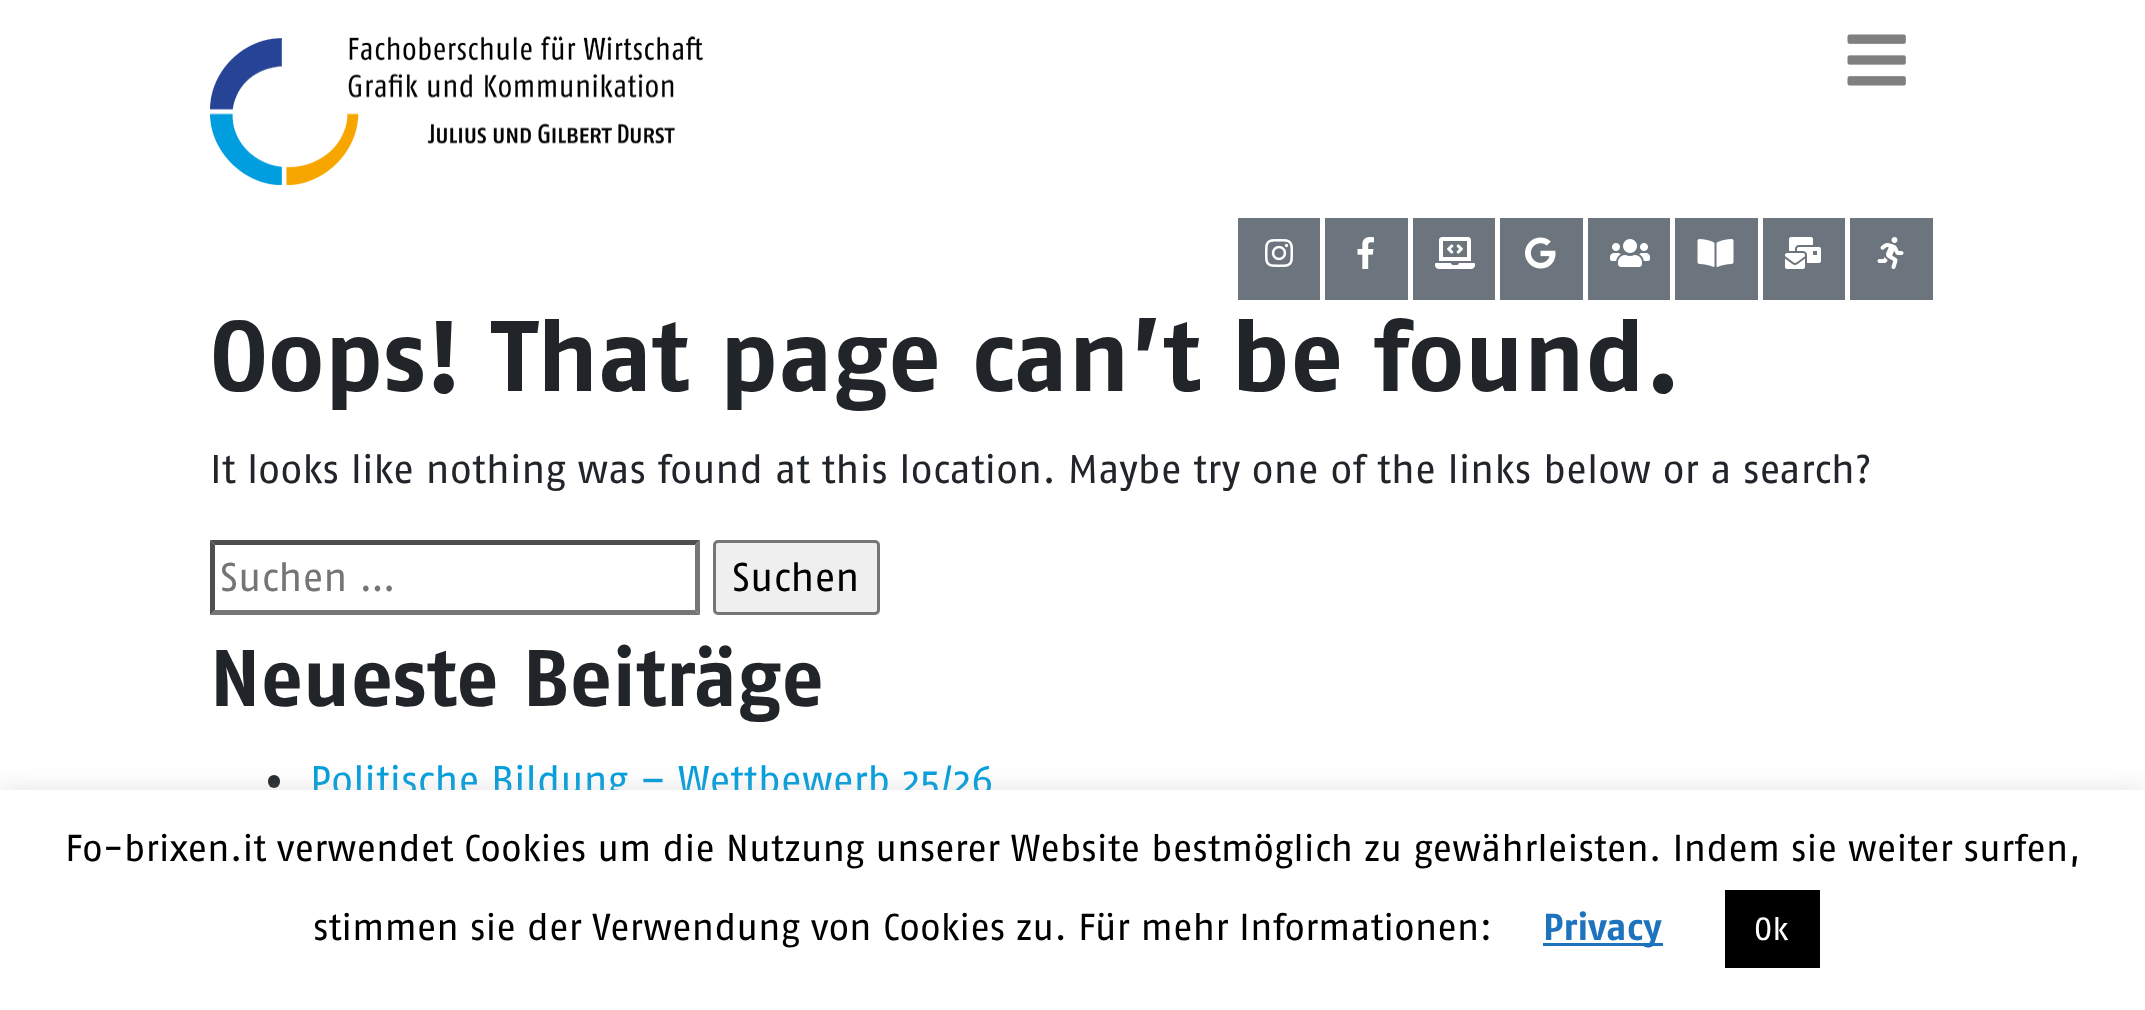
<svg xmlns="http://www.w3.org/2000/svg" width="2145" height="1010">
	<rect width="100%" height="100%" fill="#FFFFFF" />
	<image x="210" y="36" width="493" height="149" href="assets/img1.png" />
	<image x="1847" y="34" width="59" height="52" href="assets/img2.png" />
	<rect x="1238" y="218" width="82" height="82" fill="#6C757D" />
	<image x="1265" y="239" width="28" height="28" href="assets/img3.png" />
	<rect x="1325" y="218" width="83" height="82" fill="#6C757D" />
	<image x="1357" y="237" width="17" height="32" href="assets/img4.png" />
	<rect x="1413" y="218" width="82" height="82" fill="#6C757D" />
	<image x="1435" y="237" width="40" height="32" href="assets/img5.png" />
	<rect x="1500" y="218" width="83" height="82" fill="#6C757D" />
	<image x="1525" y="237" width="31" height="32" href="assets/img6.png" />
	<rect x="1588" y="218" width="82" height="82" fill="#6C757D" />
	<image x="1610" y="239" width="40" height="28" href="assets/img7.png" />
	<rect x="1675" y="218" width="83" height="82" fill="#6C757D" />
	<image x="1697" y="239" width="37" height="28" href="assets/img8.png" />
	<rect x="1763" y="218" width="82" height="82" fill="#6C757D" />
	<image x="1785" y="237" width="36" height="32" href="assets/img9.png" />
	<rect x="1850" y="218" width="83" height="82" fill="#6C757D" />
	<image x="1877" y="237" width="27" height="32" href="assets/img10.png" />
	<text x="210" y="391" font-family="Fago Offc" font-size="100" font-weight="700" fill="#212529">Oops! That page can’t be found.</text>
	<text x="210" y="483" font-family="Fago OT" font-size="40" fill="#212529">It looks like nothing was found at this location. Maybe try one of the links below or a search?</text>
	<path d="M210 540H700L695 545H215Z" fill="#4F4F4F" />
	<path d="M700 540V615L695 610V545Z" fill="#767676" />
	<path d="M700 615H210L215 610H695Z" fill="#767676" />
	<path d="M210 615V540L215 545V610Z" fill="#4F4F4F" />
	<text x="220" y="591" font-family="Fago OT" font-size="40" fill="#757575">Suchen …</text>
	<rect x="714.5" y="541.5" width="164" height="72" rx="3.5" fill="#EFEFEF" stroke="#767676" stroke-width="3" />
	<text x="732" y="591" font-family="Fago OT" font-size="40" fill="#000000">Suchen</text>
	<text x="210" y="706" font-family="Fago Offc" font-size="80" font-weight="700" fill="#212529">Neueste Beiträge</text>
	<rect x="268" y="775" width="12" height="13" rx="6" fill="#212529" />
	<text x="310" y="794" font-family="Fago OT" font-size="40" fill="#009EDD">Politische Bildung – Wettbewerb 25/26</text>
	<rect x="0" y="788" width="2145" height="220" fill="#ACABAB" fill-opacity="0.3" filter="blur(12.5px)" />
	<rect x="0" y="790" width="2145" height="220" fill="#FFFFFF" />
	<g font-family="Fago OT" font-size="37.5" fill="#000000">
		<text x="65" y="861">Fo-brixen.it verwendet Cookies um die Nutzung unserer Website bestmöglich zu gewährleisten. Indem sie weiter surfen,</text>
		<text x="313" y="940">stimmen sie der Verwendung von Cookies zu. Für mehr Informationen:</text>
	</g>
	<rect x="1543" y="943" width="120" height="3" fill="#1E73BE" />
	<text x="1543" y="940" font-family="Fago Offc" font-size="37.5" font-weight="700" fill="#1E73BE">Privacy</text>
	<rect x="1725" y="890" width="95" height="78" fill="#000000" />
	<text x="1754" y="940" font-family="Fago OT" font-size="32" fill="#FFFFFF">Ok</text>
</svg>
